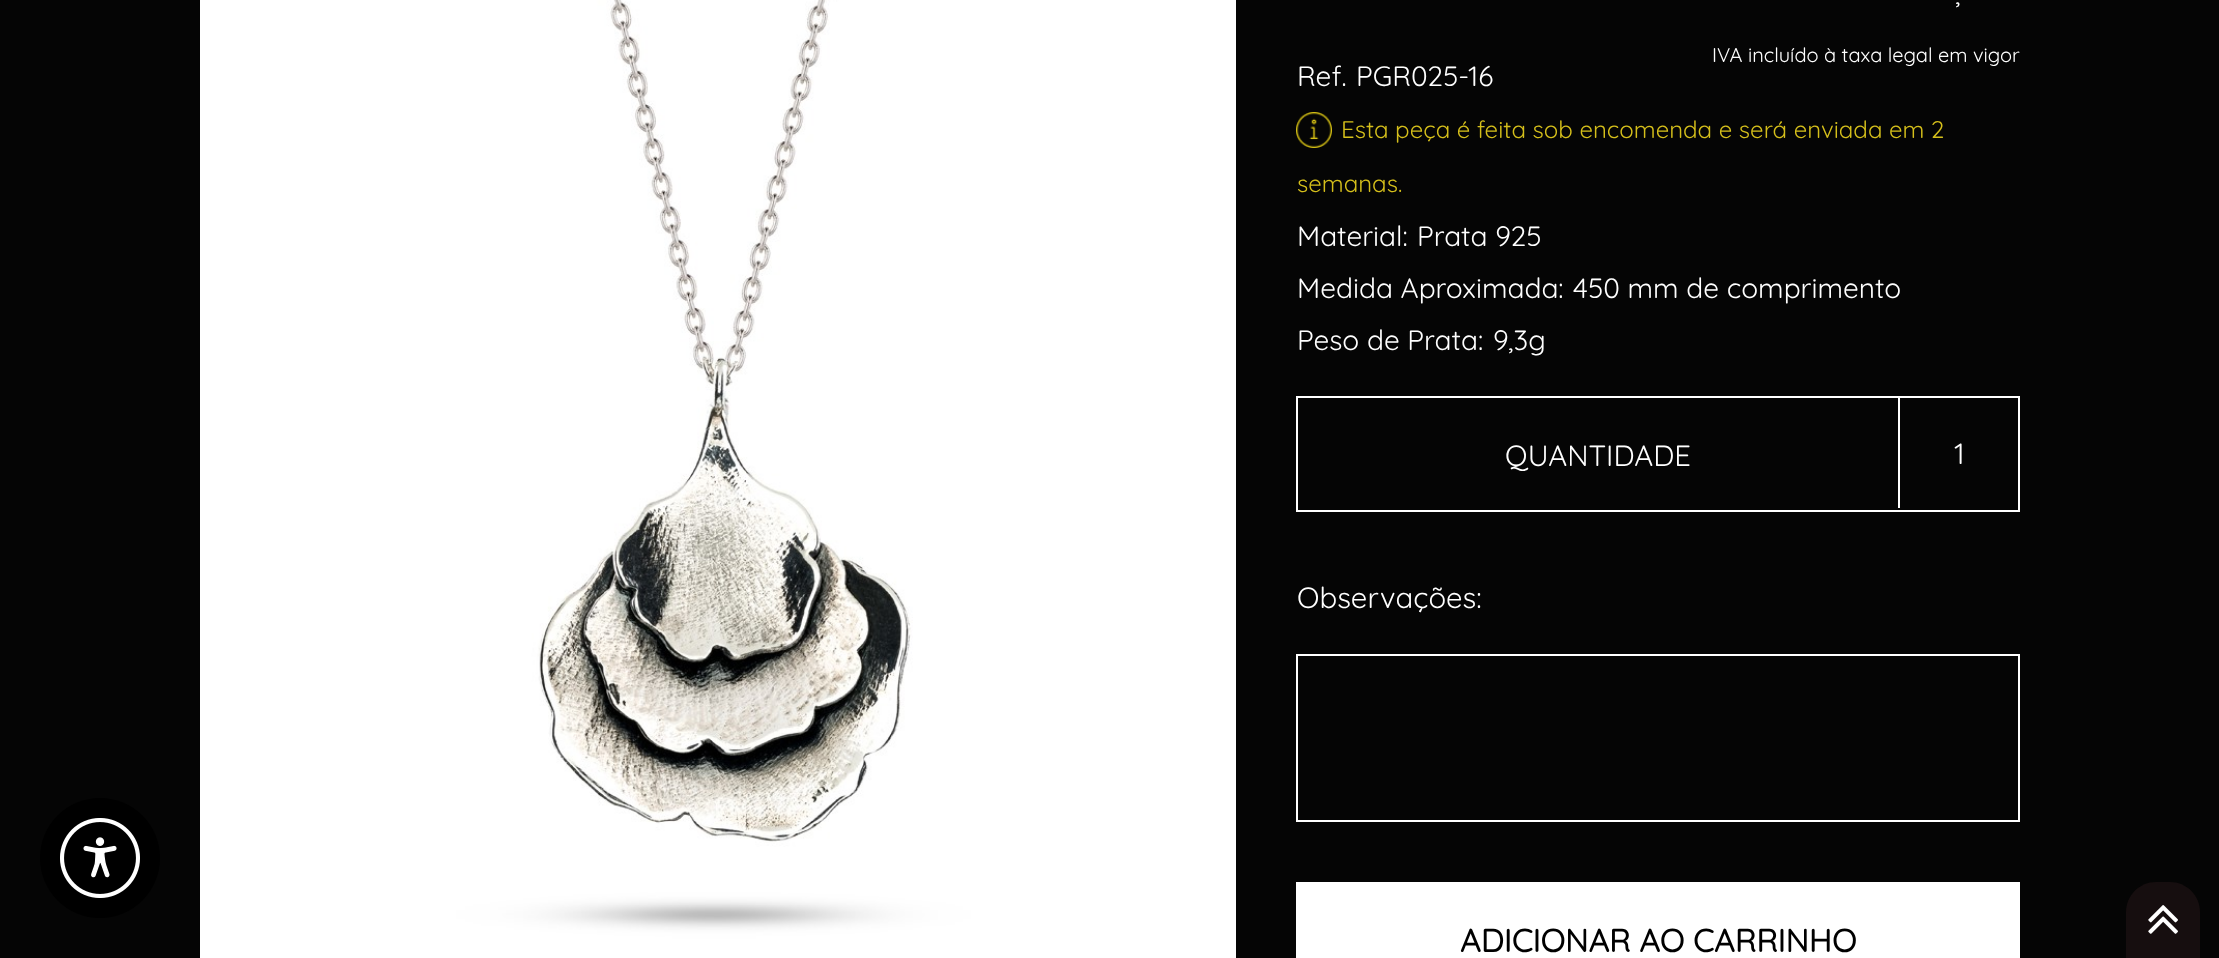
<svg xmlns="http://www.w3.org/2000/svg" width="2219" height="958">
	<rect width="100%" height="100%" fill="#050505" />
	<circle cx="100" cy="858" r="60" fill="#000000" />
	<image x="60" y="818" width="80" height="80" href="assets/img1.png" />
	<image x="200" y="0" width="1036" height="958" href="assets/img2.png" />
	<text x="1955" y="4" font-family="Quicksand" font-size="28" font-weight="300" fill="#FFFFFF">,</text>
	<text x="1712" y="62" font-family="Quicksand" font-size="20" font-weight="300" fill="#FFFFFF">IVA incluído à taxa legal em vigor</text>
	<g font-family="Quicksand" font-size="28" font-weight="300" fill="#FFFFFF">
		<text x="1297" y="86">Ref.</text>
		<text x="1356" y="86">PGR025-16</text>
	</g>
	<image x="1296" y="112" width="36" height="36" href="assets/img3.png" />
	<g font-family="Quicksand" font-size="24" font-weight="300" fill="#D5BF1B">
		<text x="1341" y="138">Esta peça é feita sob encomenda e será enviada em 2</text>
		<text x="1297" y="192">semanas.</text>
	</g>
	<g font-family="Quicksand" font-size="28" font-weight="300" fill="#FFFFFF">
		<text x="1297" y="246">Material:</text>
		<text x="1417" y="246">Prata 925</text>
		<text x="1297" y="298">Medida Aproximada:</text>
		<text x="1573" y="298">450 mm de comprimento</text>
		<text x="1297" y="350">Peso de Prata:</text>
		<text x="1493" y="350">9,3g</text>
	</g>
	<rect x="1297" y="397" width="722" height="114" fill="none" stroke="#FFFFFF" stroke-width="2" />
	<text x="1505" y="466" font-family="Quicksand" font-size="29.25" font-weight="300" fill="#FFFFFF">QUANTIDADE</text>
	<rect x="1898" y="398" width="2" height="110" fill="#FFFFFF" />
	<g font-family="Quicksand" font-size="29.25" font-weight="300" fill="#FFFFFF">
		<text x="1954" y="464">1</text>
		<text x="1297" y="608">Observações:</text>
	</g>
	<rect x="1297" y="655" width="722" height="166" fill="none" stroke="#FFFFFF" stroke-width="2" />
	<rect x="1296" y="882" width="724" height="76" fill="#FFFFFF" />
	<text x="1460" y="952" font-family="Quicksand" font-size="32" font-weight="700" fill="#000000">ADICIONAR AO CARRINHO</text>
	<path d="M2156 882H2170C2186.5 882 2200 895.5 2200 912V958H2126V912C2126 895.5 2139.5 882 2156 882Z" fill="#160E0F" />
	<image x="2148" y="905" width="30" height="29" href="assets/img4.png" />
</svg>
